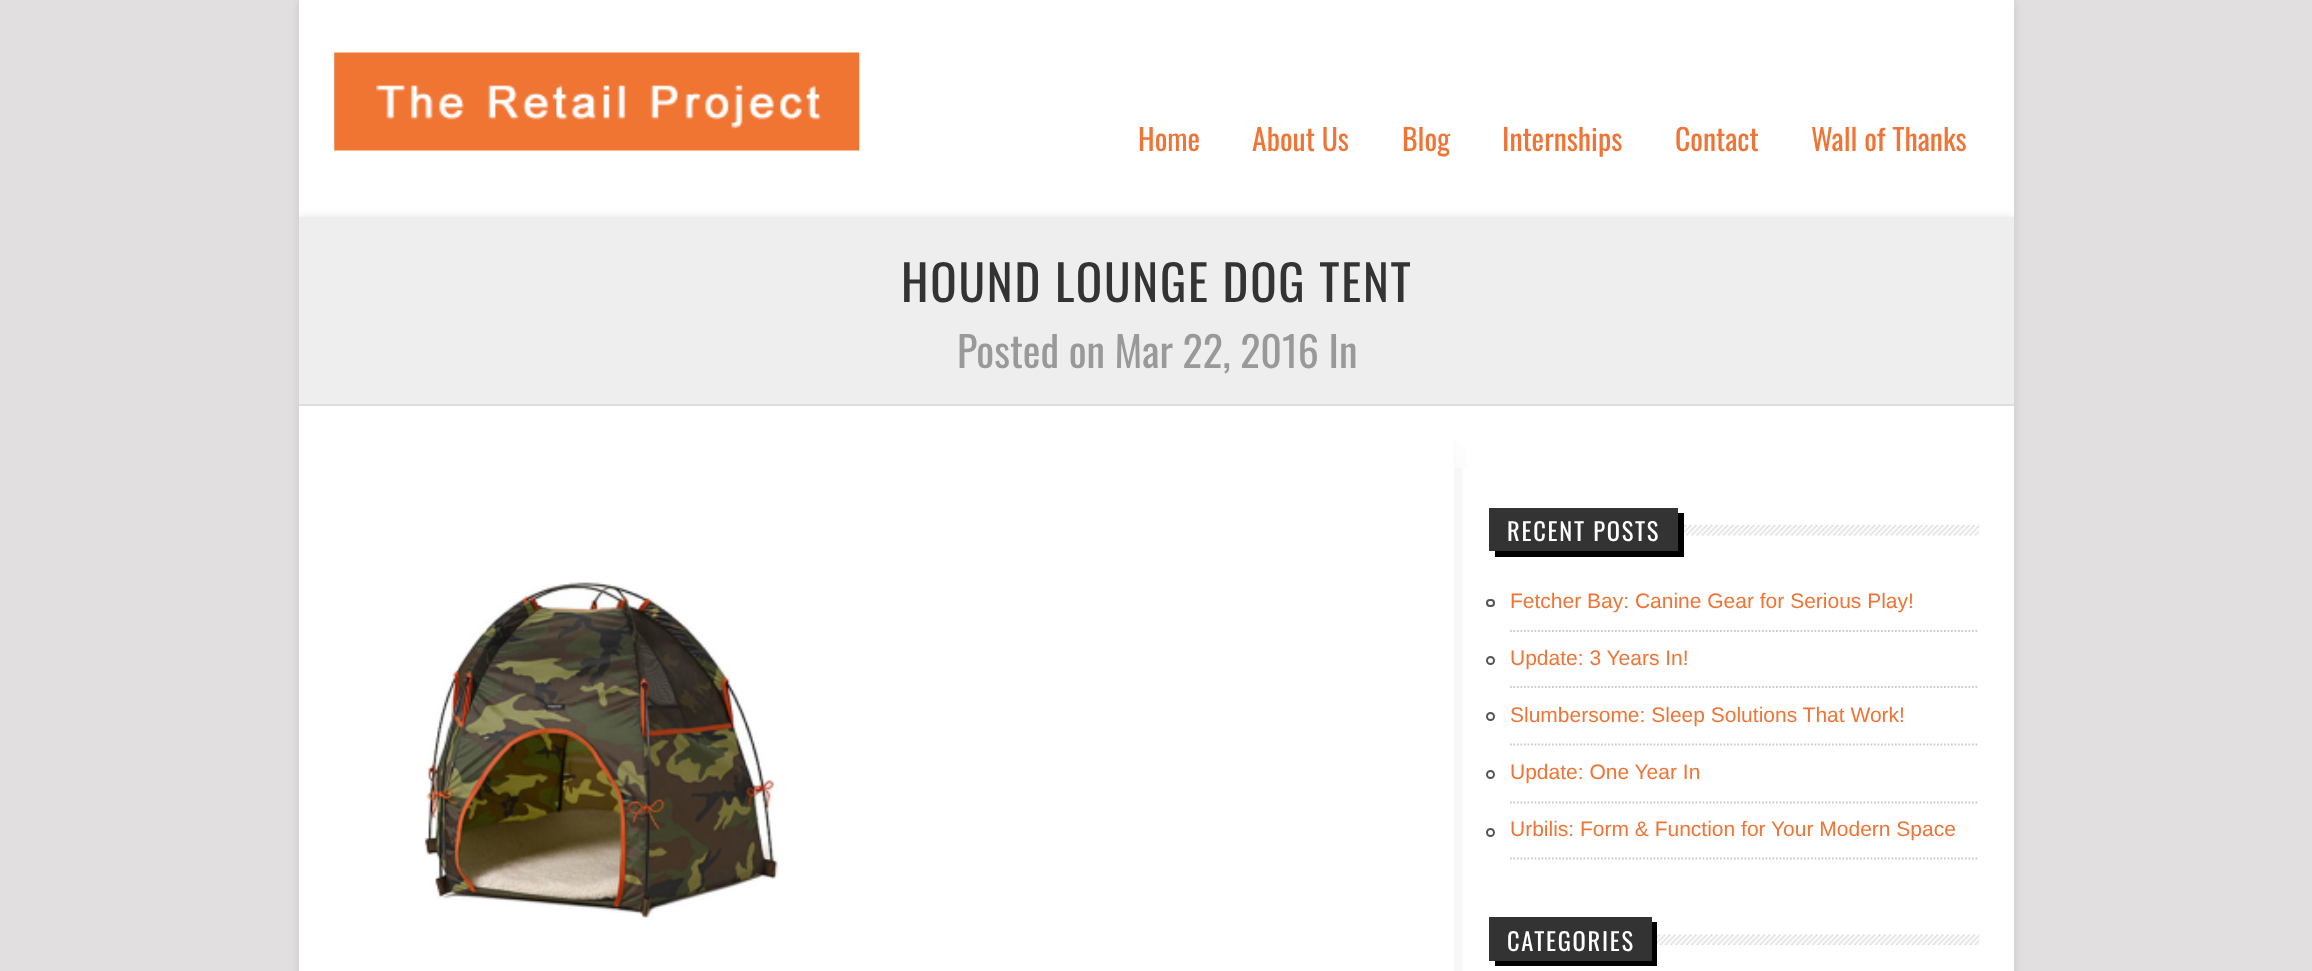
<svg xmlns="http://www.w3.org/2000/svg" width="2312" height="971">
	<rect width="100%" height="100%" fill="#E1DFDF" />
	<rect x="299" y="0" width="1715" height="217" fill="#000000" fill-opacity="0.1" filter="blur(5px)" />
	<rect x="299" y="0" width="1715" height="217" fill="#FFFFFF" />
	<image x="334" y="52" width="526" height="99" href="assets/img1.png" />
	<g font-family="Oswald" font-size="29.75" fill="#F07435">
		<text x="1138" y="151">Home</text>
		<text x="1252" y="151">About Us</text>
		<text x="1402" y="151">Blog</text>
		<text x="1502" y="151">Internships</text>
		<text x="1675" y="151">Contact</text>
		<text x="1811" y="151">Wall of Thanks</text>
	</g>
	<rect x="299" y="217" width="1715" height="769" fill="#000000" fill-opacity="0.1" filter="blur(5px)" />
	<rect x="299" y="406" width="1715" height="565" fill="#FFFFFF" />
	<rect x="299" y="217" width="1715" height="187" fill="#EEEEEE" />
	<rect x="299" y="404" width="1715" height="2" fill="#DDDDDD" />
	<text x="901" y="302" font-family="Oswald" font-size="49" letter-spacing="1.75" fill="#333333">HOUND LOUNGE DOG TENT</text>
	<text x="957" y="368" font-family="Oswald" font-size="42" fill="#999999">Posted on Mar 22, 2016 In</text>
	<image x="424" y="582" width="355" height="338" href="assets/img2.png" />
	<image x="1454" y="441" width="9" height="530" href="assets/img3.png" />
	<image x="1455" y="441" width="12" height="27" href="assets/img4.png" />
	<image x="1684" y="525" width="296" height="11" href="assets/img5.png" />
	<path d="M1495 551V557H1684V513H1678V551Z" fill="#000000" />
	<rect x="1489" y="508" width="189" height="43" fill="#333333" />
	<text x="1507" y="541" font-family="Oswald" font-size="24.5" letter-spacing="1.75" fill="#FFFFFF">RECENT POSTS</text>
	<path d="M1510 631H1979" fill="none" stroke="#CCCCCC" stroke-width="1.8" stroke-dasharray="1.75 1.75" />
	<rect x="1487" y="600" width="7" height="6" rx="3" fill="none" stroke="#555555" stroke-width="2" />
	<text x="1510" y="608" font-family="Liberation Sans" font-size="21" fill="#F07435">Fetcher Bay: Canine Gear for Serious Play!</text>
	<path d="M1510 687H1979" fill="none" stroke="#CCCCCC" stroke-width="1.8" stroke-dasharray="1.75 1.75" />
	<circle cx="1490.5" cy="660.5" r="3.5" fill="none" stroke="#555555" stroke-width="2" />
	<text x="1510" y="665" font-family="Liberation Sans" font-size="21" fill="#F07435">Update: 3 Years In!</text>
	<path d="M1510 744.5H1979" fill="none" stroke="#CCCCCC" stroke-width="1.8" stroke-dasharray="1.75 1.75" />
	<circle cx="1490.5" cy="716.5" r="3.5" fill="none" stroke="#555555" stroke-width="2" />
	<text x="1510" y="722" font-family="Liberation Sans" font-size="21" fill="#F07435">Slumbersome: Sleep Solutions That Work!</text>
	<path d="M1510 802.5H1979" fill="none" stroke="#CCCCCC" stroke-width="1.8" stroke-dasharray="1.75 1.75" />
	<circle cx="1490.5" cy="774.5" r="3.5" fill="none" stroke="#555555" stroke-width="2" />
	<text x="1510" y="779" font-family="Liberation Sans" font-size="21" fill="#F07435">Update: One Year In</text>
	<path d="M1510 858.5H1979" fill="none" stroke="#CCCCCC" stroke-width="1.8" stroke-dasharray="1.75 1.75" />
	<circle cx="1490.5" cy="832.5" r="3.5" fill="none" stroke="#555555" stroke-width="2" />
	<text x="1510" y="836" font-family="Liberation Sans" font-size="21" fill="#F07435">Urbilis: Form &amp; Function for Your Modern Space</text>
	<image x="1657" y="934" width="323" height="11" href="assets/img6.png" />
	<path d="M1495 961V966H1657V922H1652V961Z" fill="#000000" />
	<rect x="1489" y="917" width="163" height="44" fill="#333333" />
	<text x="1507" y="951" font-family="Oswald" font-size="24.5" letter-spacing="1.75" fill="#FFFFFF">CATEGORIES</text>
</svg>
